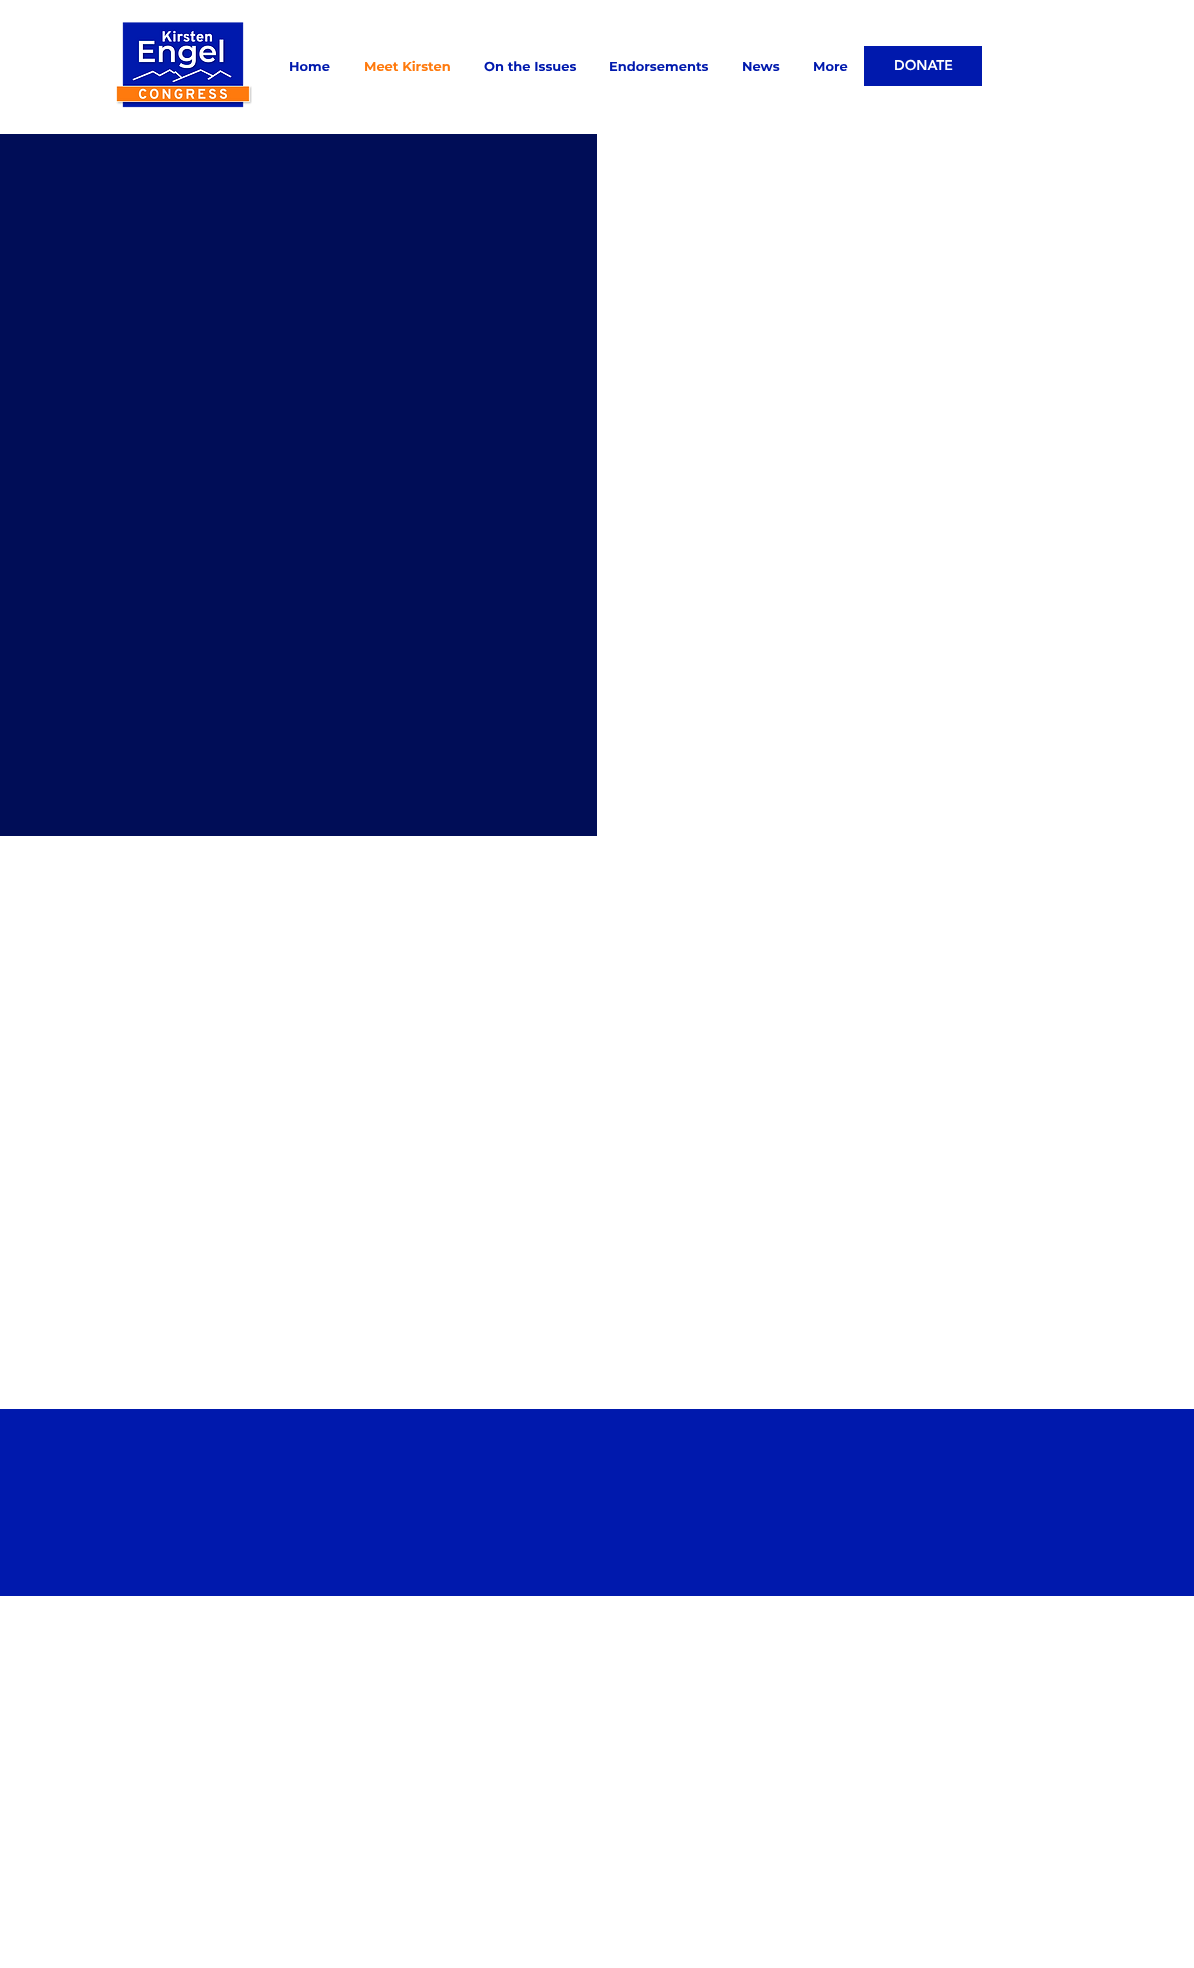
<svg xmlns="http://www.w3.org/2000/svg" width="1194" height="1968">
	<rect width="100%" height="100%" fill="#000D57" />
	<rect x="0" y="0" width="1194" height="134" fill="#FFFFFF" />
	<image x="116" y="22" width="136" height="86" href="assets/img1.png" />
	<text x="289" y="71" font-family="Montserrat" font-size="13" font-weight="700" fill="#0019AD">Home</text>
	<text x="364" y="71" font-family="Montserrat" font-size="13" font-weight="700" fill="#FF7A0D">Meet Kirsten</text>
	<g font-family="Montserrat" font-size="13" font-weight="700" fill="#0019AD">
		<text x="484" y="71">On the Issues</text>
		<text x="609" y="71">Endorsements</text>
		<text x="742" y="71">News</text>
		<text x="813" y="71">More</text>
	</g>
	<rect x="864" y="46" width="118" height="40" fill="#0019AD" />
	<text x="894" y="70" font-family="'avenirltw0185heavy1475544'" font-size="14" font-weight="900" fill="#FFFFFF">DONATE</text>
	<rect x="597" y="134" width="597" height="702" fill="#FFFFFF" />
	<rect x="0" y="836" width="1194" height="573" fill="#FFFFFF" />
	<rect x="0" y="1409" width="1194" height="187" fill="#0019AD" />
	<rect x="0" y="1596" width="1194" height="372" fill="#FFFFFF" />
</svg>
